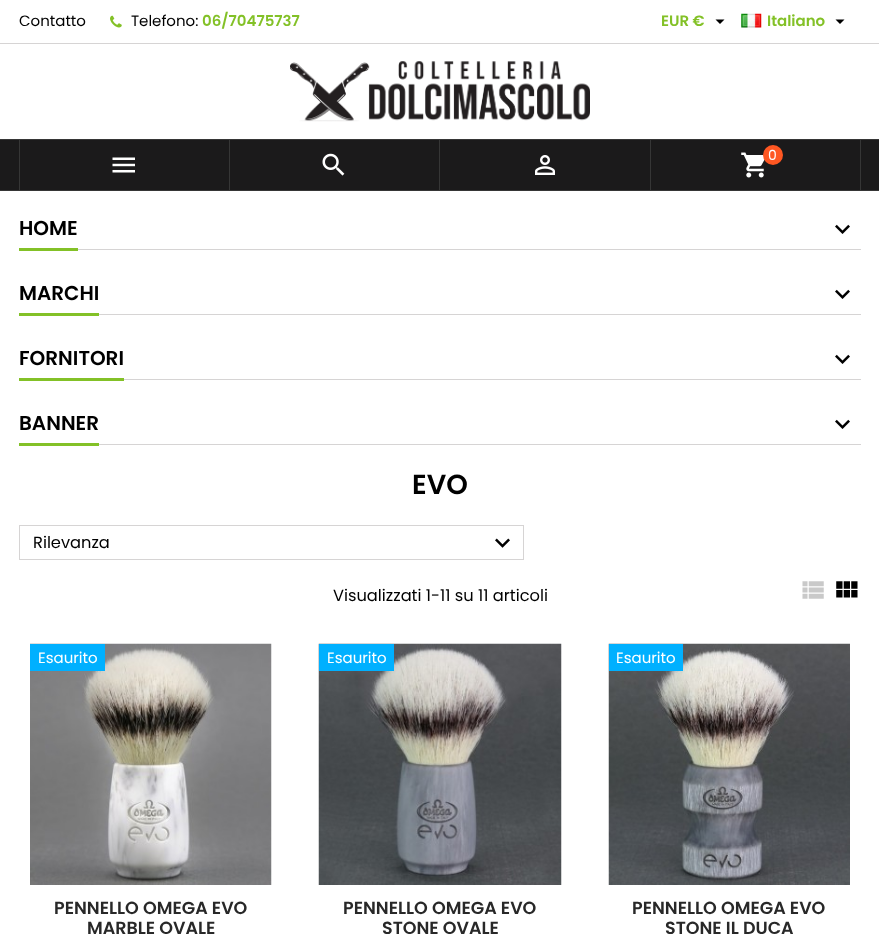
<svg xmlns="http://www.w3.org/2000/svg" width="879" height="934">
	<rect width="100%" height="100%" fill="#FFFFFF" />
	<rect x="0" y="43" width="879" height="1" fill="#D6D4D4" />
	<text x="19" y="26" font-family="Poppins" font-size="15" fill="#000000">Contatto</text>
	<image x="110" y="15" width="12" height="13" href="assets/img1.png" />
	<text x="131" y="26" font-family="Poppins" font-size="15" fill="#000000">Telefono:</text>
	<g font-family="Poppins" font-size="15" font-weight="600" fill="#83C127">
		<text x="202" y="26">06/70475737</text>
		<text x="661" y="26">EUR €</text>
	</g>
	<path d="M715.5 19.5H724.5L720 24Z" fill="#000000" />
	<image x="741" y="13" width="21" height="15" href="assets/img2.png" />
	<text x="767" y="26" font-family="Poppins" font-size="15" font-weight="600" fill="#83C127">Italiano</text>
	<path d="M835.5 19.5H844.5L840 24Z" fill="#000000" />
	<image x="290" y="61" width="300" height="61" href="assets/img3.png" />
	<rect x="0" y="140" width="879" height="50" fill="#1B1A1B" />
	<rect x="0" y="139" width="879" height="1" fill="#363636" />
	<rect x="0" y="190" width="879" height="1" fill="#363636" />
	<rect x="229" y="140" width="1" height="50" fill="#363636" />
	<rect x="19" y="140" width="1" height="50" fill="#363636" />
	<image x="112" y="157" width="23" height="16" href="assets/img4.png" />
	<rect x="439" y="140" width="1" height="50" fill="#363636" />
	<image x="322" y="153" width="23" height="23" href="assets/img5.png" />
	<rect x="650" y="140" width="1" height="50" fill="#363636" />
	<image x="535" y="155" width="20" height="20" href="assets/img6.png" />
	<rect x="860" y="140" width="1" height="50" fill="#363636" />
	<image x="741" y="152" width="24" height="26" href="assets/img7.png" />
	<circle cx="773" cy="155" r="10" fill="#FF5722" />
	<text x="768" y="160" font-family="Poppins" font-size="14" fill="#FFFFFF">0</text>
	<rect x="78" y="249" width="783" height="1" fill="#D6D4D4" />
	<rect x="19" y="248" width="59" height="3" fill="#83C127" />
	<text x="19" y="235" font-family="Poppins" font-size="20" font-weight="600" fill="#000000">HOME</text>
	<image x="835" y="224" width="15" height="10" href="assets/img8.png" />
	<rect x="99" y="314" width="762" height="1" fill="#D6D4D4" />
	<rect x="19" y="313" width="80" height="3" fill="#83C127" />
	<text x="19" y="300" font-family="Poppins" font-size="20" font-weight="600" fill="#000000">MARCHI</text>
	<image x="835" y="289" width="15" height="10" href="assets/img8.png" />
	<rect x="124" y="379" width="737" height="1" fill="#D6D4D4" />
	<rect x="19" y="378" width="105" height="3" fill="#83C127" />
	<text x="19" y="365" font-family="Poppins" font-size="20" font-weight="600" fill="#000000">FORNITORI</text>
	<image x="835" y="354" width="15" height="10" href="assets/img8.png" />
	<rect x="99" y="444" width="762" height="1" fill="#D6D4D4" />
	<rect x="19" y="443" width="80" height="3" fill="#83C127" />
	<text x="19" y="430" font-family="Poppins" font-size="20" font-weight="600" fill="#000000">BANNER</text>
	<image x="835" y="419" width="15" height="10" href="assets/img8.png" />
	<text x="412" y="494" font-family="Poppins" font-size="27.5" font-weight="600" fill="#000000">EVO</text>
	<rect x="19.5" y="525.5" width="504" height="34" fill="none" stroke="#D6D4D4" />
	<text x="33" y="548" font-family="Poppins" font-size="16.25" fill="#000000">Rilevanza</text>
	<image x="495" y="538" width="15" height="10" href="assets/img9.png" />
	<text x="333" y="601" font-family="Poppins" font-size="16.25" fill="#000000">Visualizzati 1-11 su 11 articoli</text>
	<image x="802" y="581" width="22" height="18" href="assets/img10.png" />
	<image x="836" y="581" width="22" height="17" href="assets/img11.png" />
	<image x="30" y="643" width="242" height="242" href="assets/img12.png" />
	<rect x="30" y="644" width="75" height="27" fill="#00B0FF" />
	<text x="38" y="663" font-family="Poppins" font-size="15" fill="#FFFFFF">Esaurito</text>
	<g font-family="Poppins" font-size="17.5" font-weight="600" fill="#282828">
		<text x="54" y="914">PENNELLO OMEGA EVO</text>
		<text x="87" y="934">MARBLE OVALE</text>
	</g>
	<image x="318" y="643" width="244" height="242" href="assets/img13.png" />
	<rect x="319" y="644" width="75" height="27" fill="#00B0FF" />
	<text x="327" y="663" font-family="Poppins" font-size="15" fill="#FFFFFF">Esaurito</text>
	<g font-family="Poppins" font-size="17.5" font-weight="600" fill="#282828">
		<text x="343" y="914">PENNELLO OMEGA EVO</text>
		<text x="382" y="934">STONE OVALE</text>
	</g>
	<image x="608" y="643" width="242" height="242" href="assets/img14.png" />
	<rect x="609" y="644" width="74" height="27" fill="#00B0FF" />
	<text x="616" y="663" font-family="Poppins" font-size="15" fill="#FFFFFF">Esaurito</text>
	<g font-family="Poppins" font-size="17.5" font-weight="600" fill="#282828">
		<text x="632" y="914">PENNELLO OMEGA EVO</text>
		<text x="665" y="934">STONE IL DUCA</text>
	</g>
</svg>
